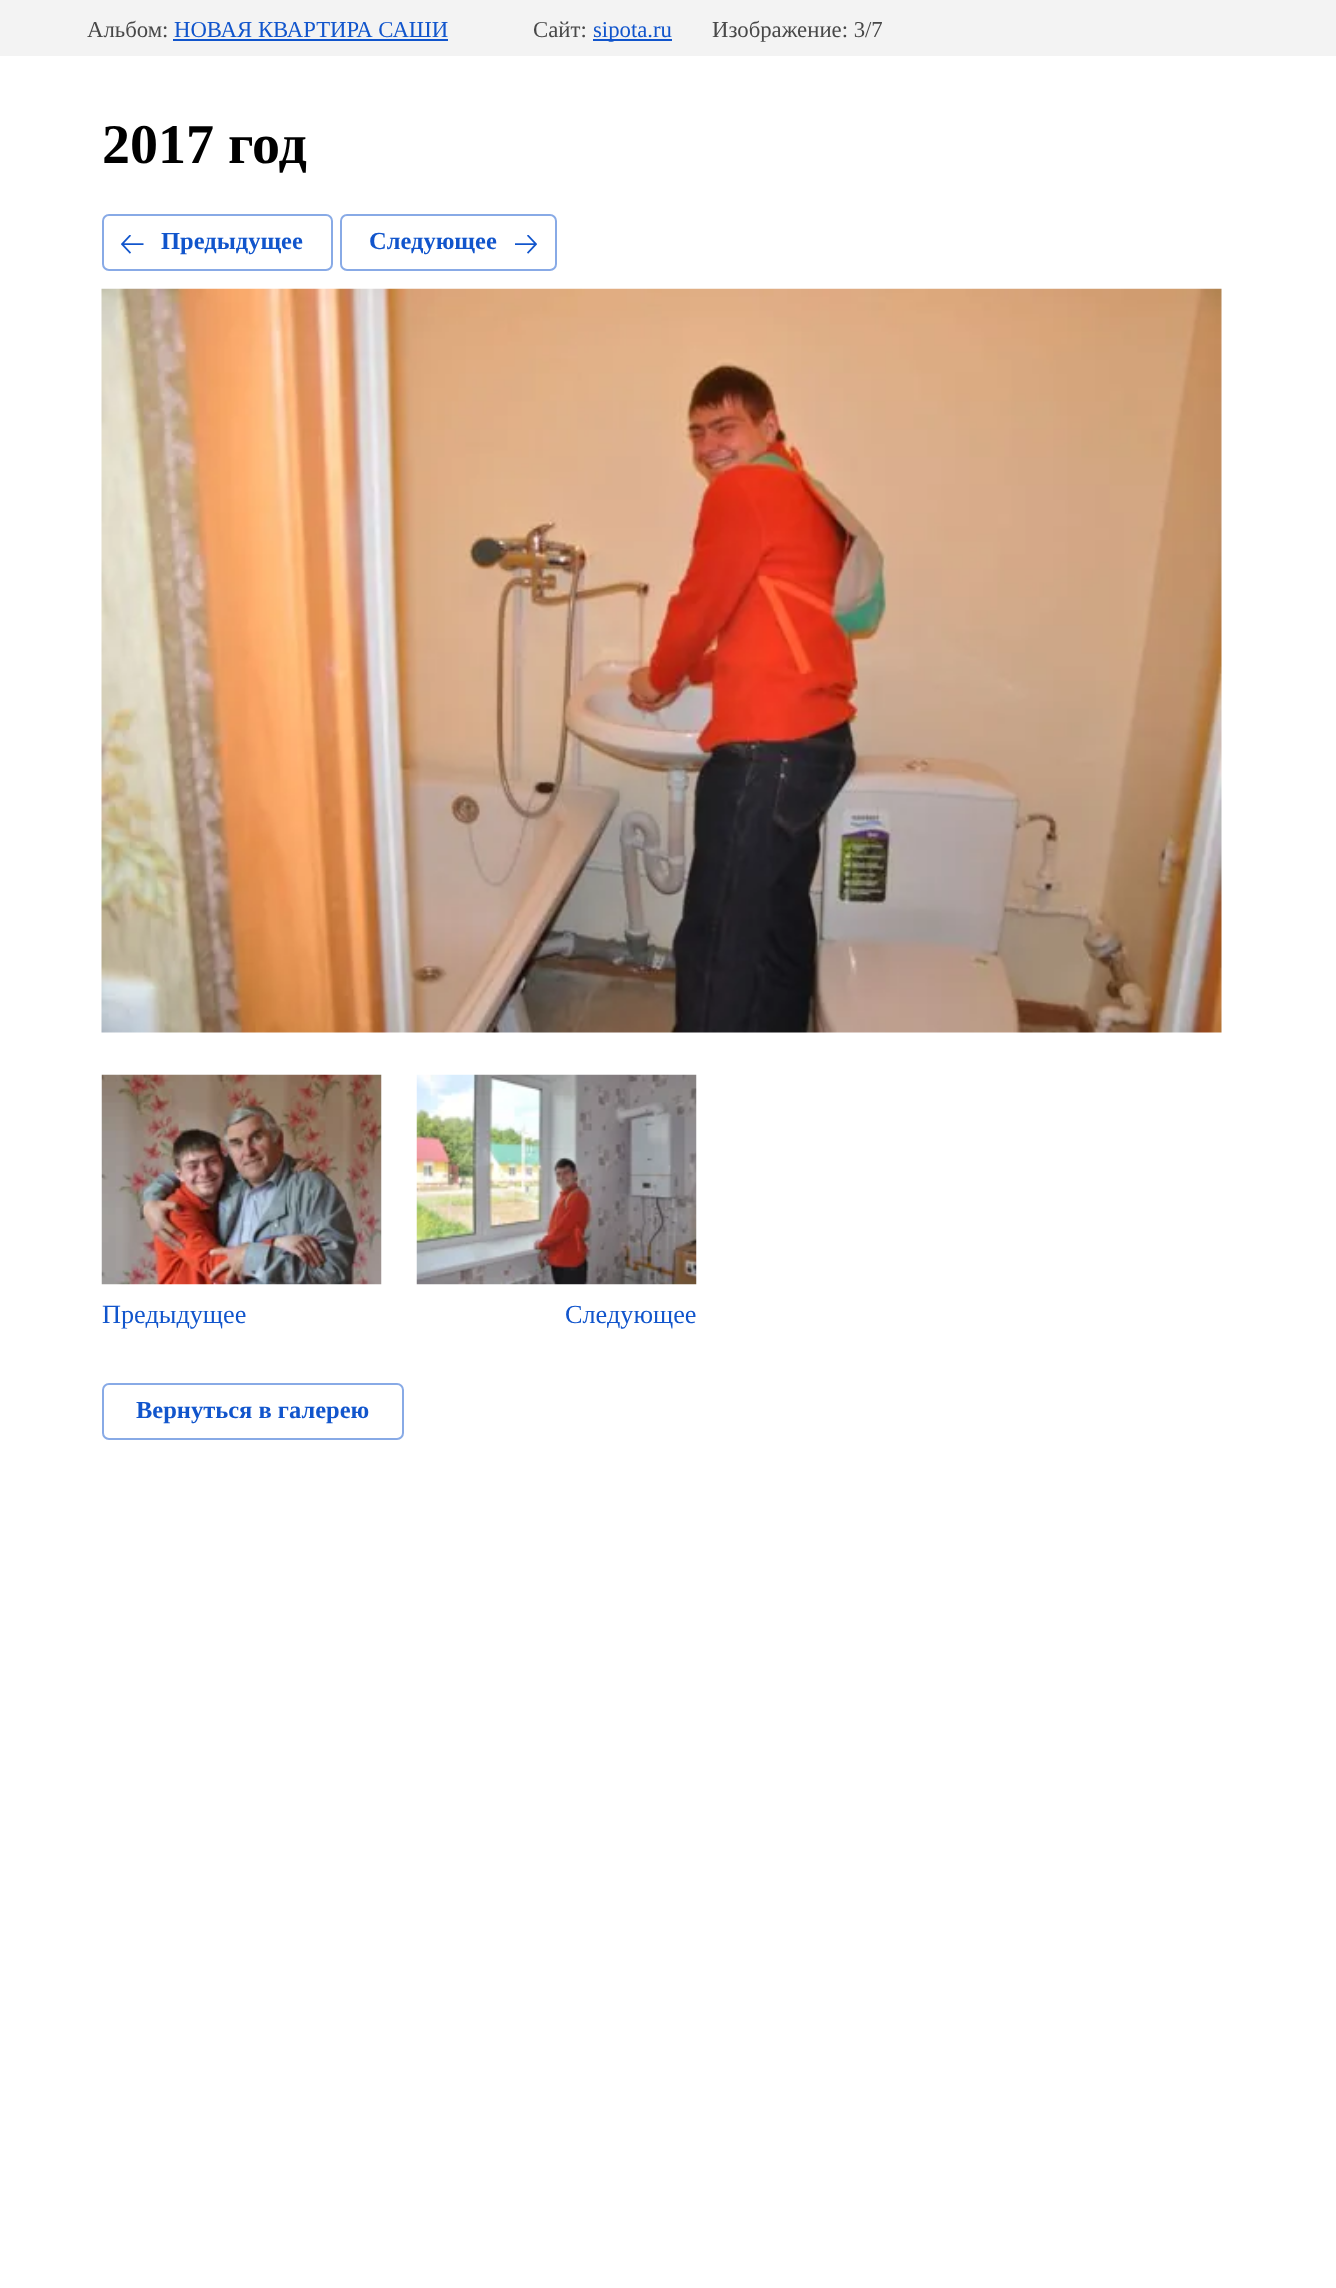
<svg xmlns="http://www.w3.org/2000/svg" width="1336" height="2288">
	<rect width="100%" height="100%" fill="#FFFFFF" />
	<rect x="0" y="0" width="1336" height="56" fill="#F3F3F3" />
	<text x="87" y="37" font-family="Liberation Serif" font-size="22.75" fill="#484848">Альбом:</text>
	<text x="174" y="37" font-family="Liberation Serif" font-size="22.75" fill="#1155CC">НОВАЯ КВАРТИРА САШИ</text>
	<rect x="173" y="39" width="275" height="2" fill="#1155CC" />
	<text x="533" y="37" font-family="Liberation Serif" font-size="22.75" fill="#484848">Сайт:</text>
	<rect x="593" y="39" width="79" height="2" fill="#1155CC" />
	<text x="593" y="37" font-family="Liberation Serif" font-size="22.75" fill="#1155CC">sipota.ru</text>
	<text x="712" y="37" font-family="Liberation Serif" font-size="22.75" fill="#484848">Изображение: 3/7</text>
	<text x="102" y="163" font-family="Liberation Serif" font-size="56" font-weight="700" fill="#000000">2017 год</text>
	<rect x="103" y="215" width="229" height="55" rx="6" fill="none" stroke="#88AAE6" stroke-width="2" />
	<image x="121" y="235" width="23" height="19" href="assets/img1.png" />
	<text x="161" y="249" font-family="Liberation Serif" font-size="24.5" font-weight="700" fill="#1155CC">Предыдущее</text>
	<rect x="341" y="215" width="215" height="55" rx="6" fill="none" stroke="#88AAE6" stroke-width="2" />
	<text x="369" y="249" font-family="Liberation Serif" font-size="24.5" font-weight="700" fill="#1155CC">Следующее</text>
	<image x="515" y="235" width="22" height="19" href="assets/img2.png" />
	<image x="101" y="288" width="1121" height="745" href="assets/img3.png" />
	<image x="101" y="1074" width="281" height="211" href="assets/img4.png" />
	<text x="102" y="1323" font-family="Liberation Serif" font-size="26.25" fill="#1155CC">Предыдущее</text>
	<image x="416" y="1074" width="281" height="211" href="assets/img5.png" />
	<text x="565" y="1323" font-family="Liberation Serif" font-size="26.25" fill="#1155CC">Следующее</text>
	<rect x="103" y="1384" width="300" height="55" rx="6" fill="none" stroke="#88AAE6" stroke-width="2" />
	<text x="136" y="1418" font-family="Liberation Serif" font-size="24.5" font-weight="700" fill="#1155CC">Вернуться в галерею</text>
</svg>
